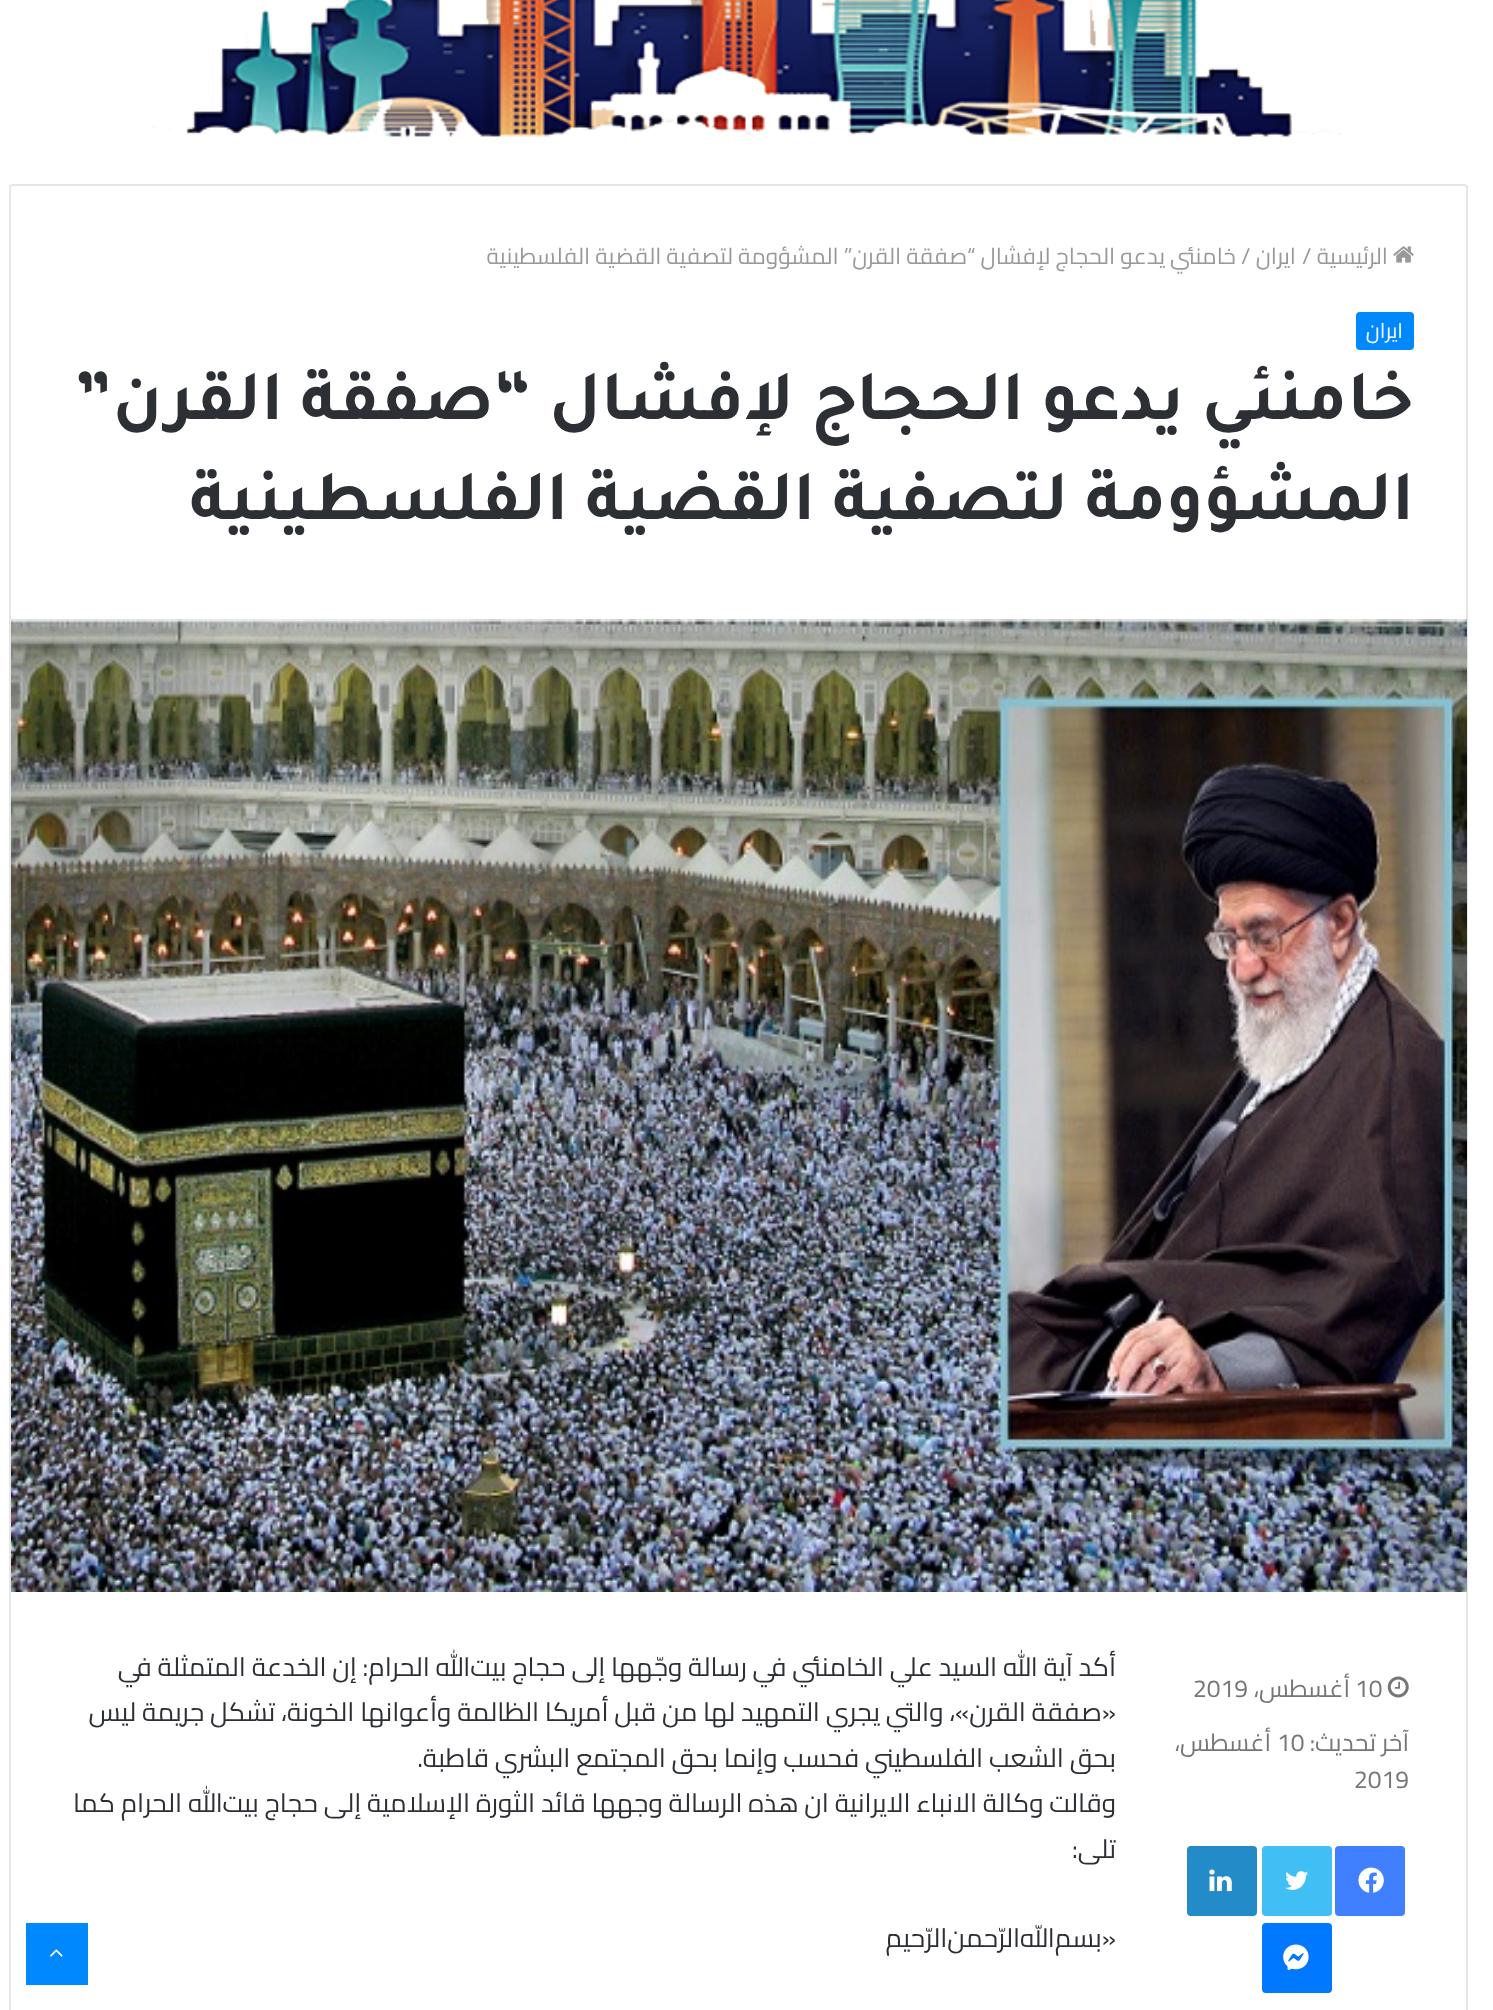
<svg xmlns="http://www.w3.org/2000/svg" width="1493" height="2010">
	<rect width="100%" height="100%" fill="#FFFFFF" />
	<image x="152" y="0" width="1190" height="137" href="assets/img1.png" />
	<rect x="10" y="185" width="1457" height="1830" rx="3" fill="none" stroke="#E6E6E6" stroke-width="2" />
	<image x="1393" y="246" width="21" height="17" href="assets/img2.png" />
	<text x="1388" y="264" font-family="Cairo" font-size="22.75" direction="rtl" fill="#999999">الرئيسية</text>
	<text x="1302" y="264" font-family="Cairo" font-size="22.75" fill="#999999">/</text>
	<text x="1296" y="264" font-family="Cairo" font-size="22.75" direction="rtl" fill="#999999">ايران</text>
	<text x="1241" y="264" font-family="Cairo" font-size="22.75" fill="#999999">/</text>
	<text x="1236" y="264" font-family="Cairo" font-size="22.75" direction="rtl" fill="#999999">خامنئي يدعو الحجاج لإفشال “صفقة القرن” المشؤومة لتصفية القضية الفلسطينية</text>
	<rect x="1356" y="312" width="58" height="38" rx="4" fill="#0088FF" />
	<text x="1403" y="338" font-family="Cairo" font-size="21" direction="rtl" fill="#FFFFFF">ايران</text>
	<g font-family="Tajawal" font-size="71.75" font-weight="700" direction="rtl" fill="#2C2F34">
		<text x="1414" y="419">خامنئي يدعو الحجاج لإفشال “صفقة القرن”</text>
		<text x="1414" y="519">المشؤومة لتصفية القضية الفلسطينية</text>
	</g>
	<image x="11" y="619" width="1456" height="973" href="assets/img3.png" />
	<image x="1387" y="1676" width="22" height="22" href="assets/img4.png" />
	<text x="1355" y="1697" font-family="Cairo" font-size="24.5" fill="#767676">10</text>
	<text x="1350" y="1697" font-family="Cairo" font-size="24.5" direction="rtl" fill="#767676">أغسطس،</text>
	<text x="1193" y="1697" font-family="Cairo" font-size="24.5" fill="#767676">2019</text>
	<text x="1409" y="1751" font-family="Cairo" font-size="24.5" direction="rtl" fill="#767676">آخر تحديث:</text>
	<text x="1277" y="1751" font-family="Cairo" font-size="24.5" fill="#767676">10</text>
	<text x="1271" y="1751" font-family="Cairo" font-size="24.5" direction="rtl" fill="#767676">أغسطس،</text>
	<text x="1354" y="1788" font-family="Cairo" font-size="24.5" fill="#767676">2019</text>
	<rect x="1335" y="1846" width="70" height="70" rx="4" fill="#4080FF" />
	<image x="1358" y="1867" width="26" height="26" href="assets/img5.png" />
	<rect x="1262" y="1846" width="70" height="70" rx="4" fill="#40BFF5" />
	<image x="1285" y="1871" width="24" height="19" href="assets/img6.png" />
	<rect x="1187" y="1846" width="70" height="70" rx="4" fill="#238CC8" />
	<image x="1209" y="1869" width="23" height="23" href="assets/img7.png" />
	<rect x="1262" y="1923" width="70" height="70" rx="4" fill="#0078FF" />
	<image x="1283" y="1944" width="26" height="26" href="assets/img8.png" />
	<g font-family="Cairo" font-size="26.25" direction="rtl" fill="#2C2F34">
		<text x="1116" y="1676">أكد آية الله السید علي الخامنئي في رسالة وجّهها إلى حجاج بيت‌الله الحرام: إن الخدعة المتمثلة في</text>
		<text x="1116" y="1721">«صفقة القرن»، والتي یجري التمهید لها من قبل أمریکا الظالمة وأعوانها الخونة، تشکل جریمة لیس</text>
		<text x="1116" y="1767">بحق الشعب الفلسطیني فحسب وإنما بحق المجتمع البشري قاطبة.</text>
		<text x="1116" y="1812">وقالت وكالة الانباء الايرانية ان هذه الرسالة وجهها قائد الثورة الإسلامیة إلی حجاج بیت‌الله الحرام کما</text>
		<text x="1116" y="1858">تلی:</text>
		<text x="1116" y="1947">«بسم‌اللّه‌الرّحمن‌الرّحیم</text>
	</g>
	<rect x="26" y="1923" width="62" height="62" fill="#0088FF" />
	<image x="50" y="1949" width="13" height="8" href="assets/img9.png" />
</svg>
